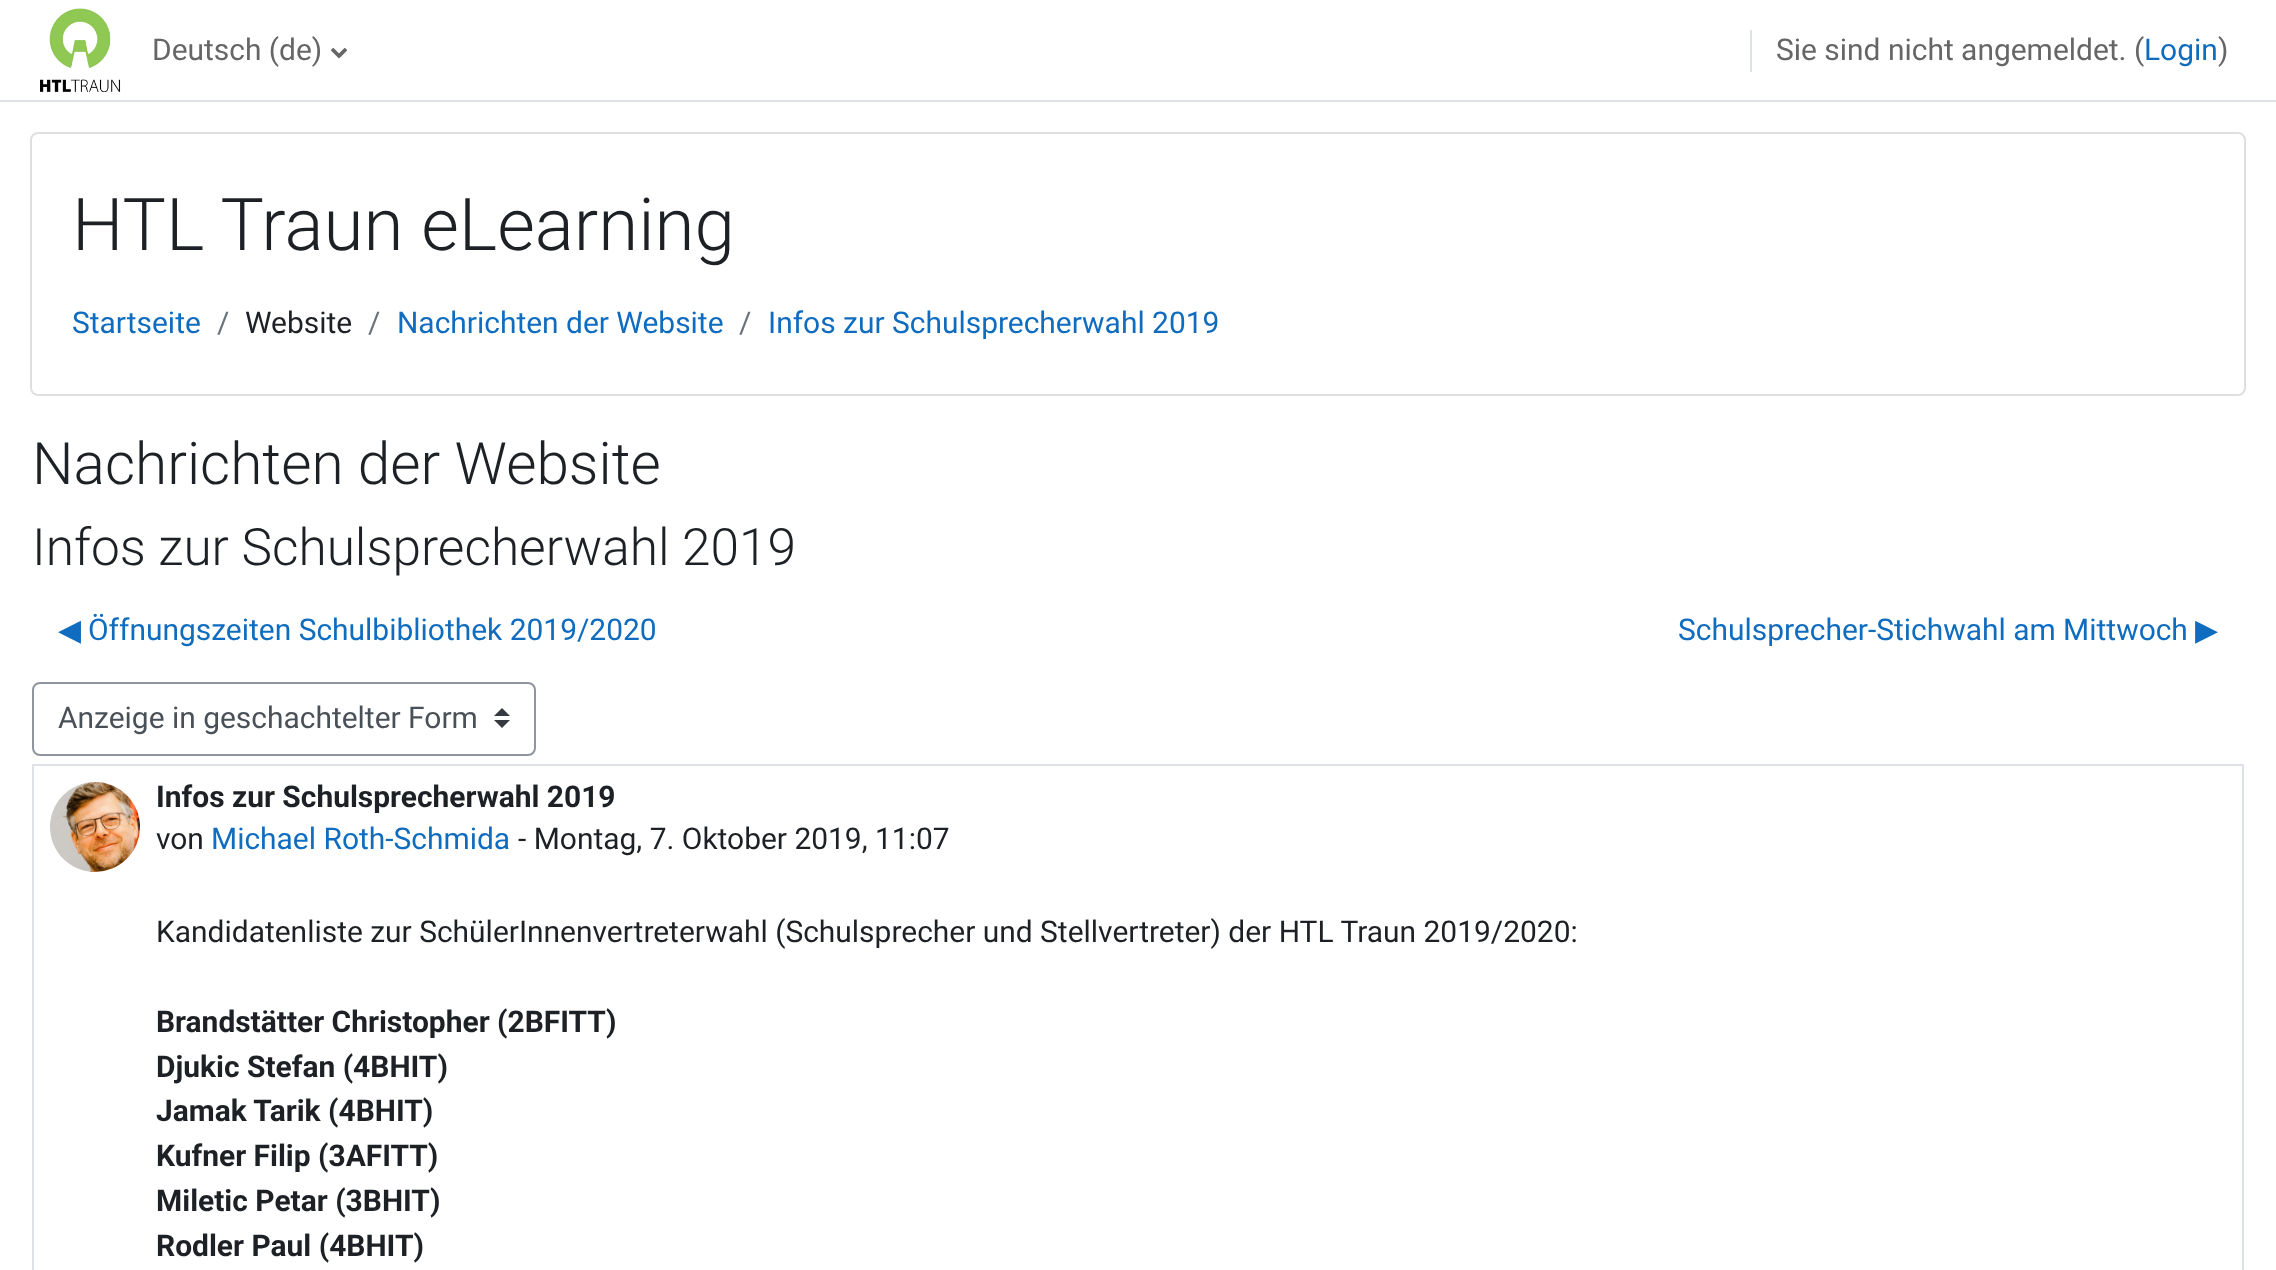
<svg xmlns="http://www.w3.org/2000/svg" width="2276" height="1270">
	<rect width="100%" height="100%" fill="#FFFFFF" />
	<rect x="0" y="100" width="2276" height="2" fill="#DEE2E6" />
	<image x="40" y="8" width="81" height="84" href="assets/img1.png" />
	<text x="152" y="60" font-family="Roboto" font-size="29.95" fill="#666666">Deutsch (de)</text>
	<image x="331" y="48" width="16" height="11" href="assets/img2.png" />
	<rect x="1750" y="30" width="2" height="42" fill="#DEE2E6" />
	<text x="1776" y="60" font-family="Roboto" font-size="29.95" fill="#666666">Sie sind nicht angemeldet. (</text>
	<text x="2144" y="60" font-family="Roboto" font-size="29.95" fill="#0F6CBF">Login</text>
	<text x="2218" y="60" font-family="Roboto" font-size="29.95" fill="#666666">)</text>
	<rect x="31" y="133" width="2214" height="262" rx="7" fill="none" stroke="#DFDFDF" stroke-width="2" />
	<text x="72" y="250" font-family="Roboto" font-size="72.75" font-weight="300" fill="#1D2125">HTL Traun eLearning</text>
	<text x="72" y="333" font-family="Roboto" font-size="29.95" fill="#0F6CBF">Startseite</text>
	<text x="217" y="333" font-family="Roboto" font-size="29.95" fill="#6A737B">/</text>
	<text x="245" y="333" font-family="Roboto" font-size="29.95" fill="#1D2125">Website</text>
	<text x="368" y="333" font-family="Roboto" font-size="29.95" fill="#6A737B">/</text>
	<text x="397" y="333" font-family="Roboto" font-size="29.95" fill="#0F6CBF">Nachrichten der Website</text>
	<text x="739" y="333" font-family="Roboto" font-size="29.95" fill="#6A737B">/</text>
	<text x="768" y="333" font-family="Roboto" font-size="29.95" fill="#0F6CBF">Infos zur Schulsprecherwahl 2019</text>
	<text x="32" y="484" font-family="Roboto" font-size="58.5" font-weight="300" fill="#1D2125">Nachrichten der Website</text>
	<text x="32" y="565" font-family="Roboto" font-size="51.4" font-weight="300" fill="#1D2125">Infos zur Schulsprecherwahl 2019</text>
	<text x="58" y="640" font-family="DejaVu Sans" font-size="29.95" fill="#0F6CBF">◀︎</text>
	<g font-family="Roboto" font-size="29.95" fill="#0F6CBF">
		<text x="88" y="640">Öffnungszeiten Schulbibliothek 2019/2020</text>
		<text x="1678" y="640">Schulsprecher-Stichwahl am Mittwoch</text>
	</g>
	<text x="2195" y="640" font-family="DejaVu Sans" font-size="29.95" fill="#0F6CBF">▶︎</text>
	<path d="M502 708L494 716H510ZM502 728L494 720H510Z" fill="#343A40" />
	<rect x="33" y="683" width="502" height="72" rx="7" fill="none" stroke="#8F959E" stroke-width="2" />
	<text x="58" y="728" font-family="Roboto" font-size="29.95" fill="#495057">Anzeige in geschachtelter Form</text>
	<rect x="33" y="765" width="2210" height="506" fill="none" stroke="#DEE2E6" stroke-width="2" />
	<image x="50" y="782" width="90" height="90" href="assets/img3.png" />
	<text x="156" y="807" font-family="Roboto" font-size="29.95" font-weight="700" fill="#1D2125">Infos zur Schulsprecherwahl 2019</text>
	<text x="156" y="849" font-family="Roboto" font-size="29.95" fill="#1D2125">von</text>
	<text x="211" y="849" font-family="Roboto" font-size="29.95" fill="#0F6CBF">Michael Roth-Schmida</text>
	<g font-family="Roboto" font-size="29.95" fill="#1D2125">
		<text x="518" y="849">- Montag, 7. Oktober 2019, 11:07</text>
		<text x="156" y="942">Kandidatenliste zur SchülerInnenvertreterwahl (Schulsprecher und Stellvertreter) der HTL Traun 2019/2020:</text>
	</g>
	<g font-family="Roboto" font-size="29.95" font-weight="700" fill="#1D2125">
		<text x="156" y="1032">Brandstätter Christopher (2BFITT)</text>
		<text x="156" y="1077">Djukic Stefan (4BHIT)</text>
		<text x="156" y="1121">Jamak Tarik (4BHIT)</text>
		<text x="156" y="1166">Kufner Filip (3AFITT)</text>
		<text x="156" y="1211">Miletic Petar (3BHIT)</text>
		<text x="156" y="1256">Rodler Paul (4BHIT)</text>
	</g>
</svg>
